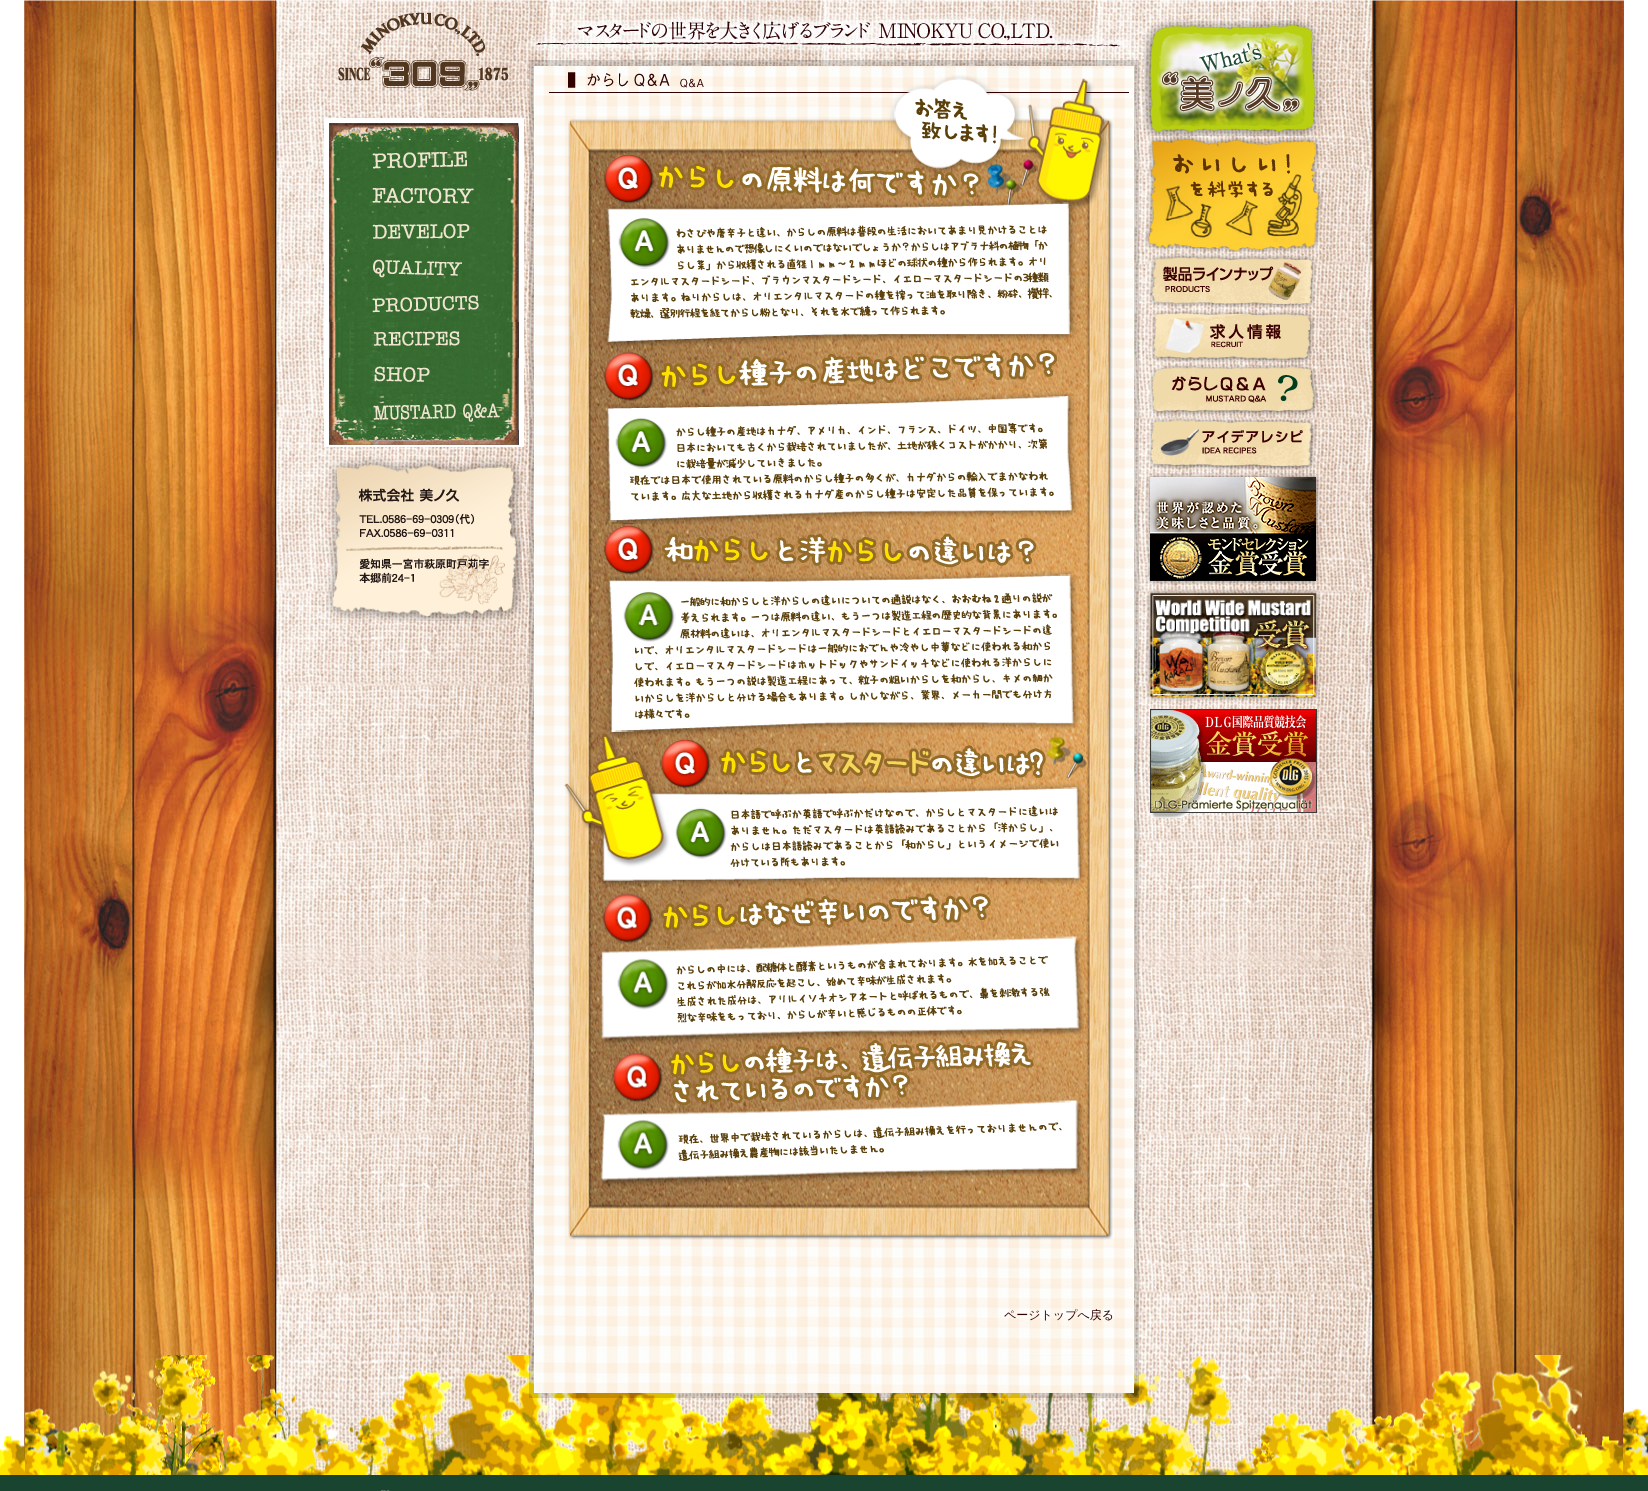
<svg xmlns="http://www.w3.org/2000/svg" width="1648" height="1491">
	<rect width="100%" height="100%" fill="#FFFFFF" />
	<image x="24" y="0" width="1600" height="1475" href="assets/img1.png" />
	<image x="338" y="12" width="171" height="79" href="assets/img2.png" />
	<rect x="324" y="118" width="200" height="329" fill="#FFFFFF" />
	<image x="329" y="123" width="190" height="19" href="assets/img3.png" />
	<image x="329" y="142" width="190" height="36" href="assets/img4.png" />
	<image x="329" y="178" width="190" height="36" href="assets/img5.png" />
	<image x="329" y="214" width="190" height="36" href="assets/img6.png" />
	<image x="329" y="250" width="190" height="36" href="assets/img7.png" />
	<image x="329" y="286" width="190" height="36" href="assets/img8.png" />
	<image x="329" y="322" width="190" height="36" href="assets/img9.png" />
	<image x="329" y="358" width="190" height="36" href="assets/img10.png" />
	<image x="329" y="394" width="190" height="36" href="assets/img11.png" />
	<image x="329" y="430" width="190" height="15" href="assets/img12.png" />
	<image x="326" y="457" width="196" height="164" href="assets/img13.png" />
	<image x="1144" y="20" width="179" height="116" href="assets/img14.png" />
	<image x="1144" y="136" width="179" height="116" href="assets/img15.png" />
	<image x="1148" y="254" width="168" height="53" href="assets/img16.png" />
	<image x="1151" y="310" width="164" height="52" href="assets/img17.png" />
	<image x="1149" y="364" width="169" height="52" href="assets/img18.png" />
	<image x="1148" y="417" width="168" height="53" href="assets/img19.png" />
	<image x="1146" y="473" width="175" height="112" href="assets/img20.png" />
	<image x="1146" y="589" width="175" height="112" href="assets/img21.png" />
	<image x="1150" y="709" width="167" height="109" href="assets/img22.png" />
	<rect x="529" y="60" width="610" height="6" fill="#000000" fill-opacity="0.15" />
	<image x="529" y="66" width="610" height="1289" href="assets/img23.png" />
	<image x="549" y="75" width="580" height="1165" href="assets/img24.png" />
	<image x="568" y="72" width="136" height="16" href="assets/img25.png" />
	<image x="603" y="153" width="475" height="371" href="assets/img26.png" />
	<image x="564" y="524" width="522" height="363" href="assets/img27.png" />
	<image x="600" y="892" width="484" height="294" href="assets/img28.png" />
	<text x="1004" y="1319" font-family="WenQuanYi Zen Hei" font-size="12" font-weight="500" fill="#310100">ページトップへ戻る</text>
	<image x="0" y="1355" width="1648" height="120" href="assets/img29.png" />
	<image x="529" y="1355" width="610" height="43" href="assets/img30.png" />
	<image x="529" y="1355" width="610" height="43" href="assets/img31.png" />
	<rect x="0" y="1475" width="1648" height="16" fill="#194430" />
	<image x="381" y="1490" width="9" height="1" href="assets/img32.png" />
</svg>
